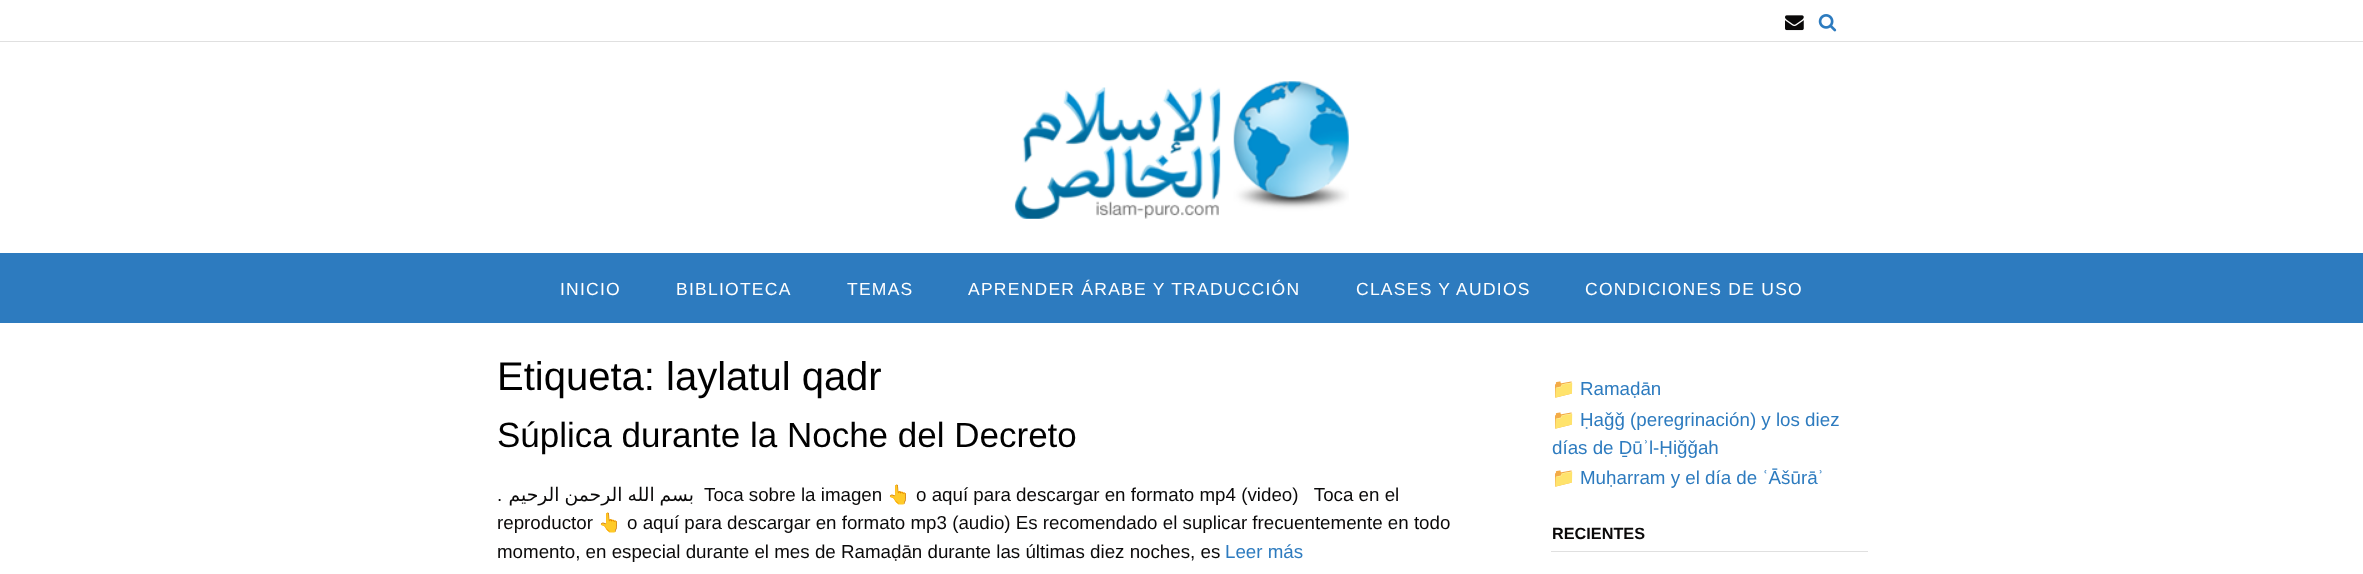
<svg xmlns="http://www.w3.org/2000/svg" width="2363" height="574">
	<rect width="100%" height="100%" fill="#FFFFFF" />
	<rect x="0" y="41" width="2363" height="1" fill="#E0E0E0" />
	<image x="1785" y="15" width="19" height="16" href="assets/img1.png" />
	<image x="1818" y="14" width="19" height="18" href="assets/img2.png" />
	<image x="1014" y="81" width="335" height="138" href="assets/img3.png" />
	<rect x="0" y="253" width="2363" height="70" fill="#2D7BBF" />
	<g font-family="Liberation Sans" font-size="17.5" letter-spacing="1.25" fill="#FFFFFF">
		<text x="560" y="295">INICIO</text>
		<text x="676" y="295">BIBLIOTECA</text>
		<text x="847" y="295">TEMAS</text>
		<text x="968" y="295">APRENDER ÁRABE Y TRADUCCIÓN</text>
		<text x="1356" y="295">CLASES Y AUDIOS</text>
		<text x="1585" y="295">CONDICIONES DE USO</text>
	</g>
	<text x="497" y="390" font-family="Liberation Sans" font-size="40" fill="#000000">Etiqueta: laylatul qadr</text>
	<text x="497" y="447" font-family="Liberation Sans" font-size="35" fill="#000000">Súplica durante la Noche del Decreto</text>
	<text x="497" y="501" font-family="Liberation Sans" font-size="18.75" fill="#0A0909">.</text>
	<text x="694" y="501" word-spacing="-1" font-family="DejaVu Sans" font-size="18.75" direction="rtl" fill="#0A0909">بسم الله الرحمن الرحيم</text>
	<text x="704" y="501" font-family="Liberation Sans" font-size="18.75" fill="#0A0909">Toca sobre la imagen</text>
	<text x="887" y="501" font-family="Noto Color Emoji" font-size="18.75" fill="#0A0909">👆</text>
	<g font-family="Liberation Sans" font-size="18.75" fill="#0A0909">
		<text x="916" y="501" xml:space="preserve">o aquí para descargar en formato mp4 (video)   Toca en el</text>
		<text x="497" y="529">reproductor</text>
	</g>
	<text x="598" y="529" font-family="Noto Color Emoji" font-size="18.75" fill="#0A0909">👆</text>
	<g font-family="Liberation Sans" font-size="18.75" fill="#0A0909">
		<text x="627" y="529">o aquí para descargar en formato mp3 (audio) Es recomendado el suplicar frecuentemente en todo</text>
		<text x="497" y="558">momento, en especial durante el mes de Ramaḍān durante las últimas diez noches, es</text>
	</g>
	<text x="1225" y="558" font-family="Liberation Sans" font-size="18.75" fill="#2D7BBF">Leer más</text>
	<text x="1552" y="395" font-family="Noto Color Emoji" font-size="18.75" fill="#2D7BBF">📁</text>
	<text x="1580" y="395" font-family="Liberation Sans" font-size="18.75" fill="#2D7BBF">Ramaḍān</text>
	<text x="1552" y="426" font-family="Noto Color Emoji" font-size="18.75" fill="#2D7BBF">📁</text>
	<g font-family="Liberation Sans" font-size="18.75" fill="#2D7BBF">
		<text x="1580" y="426">Ḥaǧǧ (peregrinación) y los diez</text>
		<text x="1552" y="454">días de Ḏūʾl-Ḥiǧǧah</text>
	</g>
	<text x="1552" y="484" font-family="Noto Color Emoji" font-size="18.75" fill="#2D7BBF">📁</text>
	<text x="1580" y="484" font-family="Liberation Sans" font-size="18.75" fill="#2D7BBF">Muḥarram y el día de ʿĀšūrāʾ</text>
	<rect x="1551" y="551" width="317" height="1" fill="#E0E0E0" />
	<text x="1552" y="539" font-family="Liberation Sans" font-size="16.25" font-weight="700" fill="#0A0909">RECIENTES</text>
</svg>
